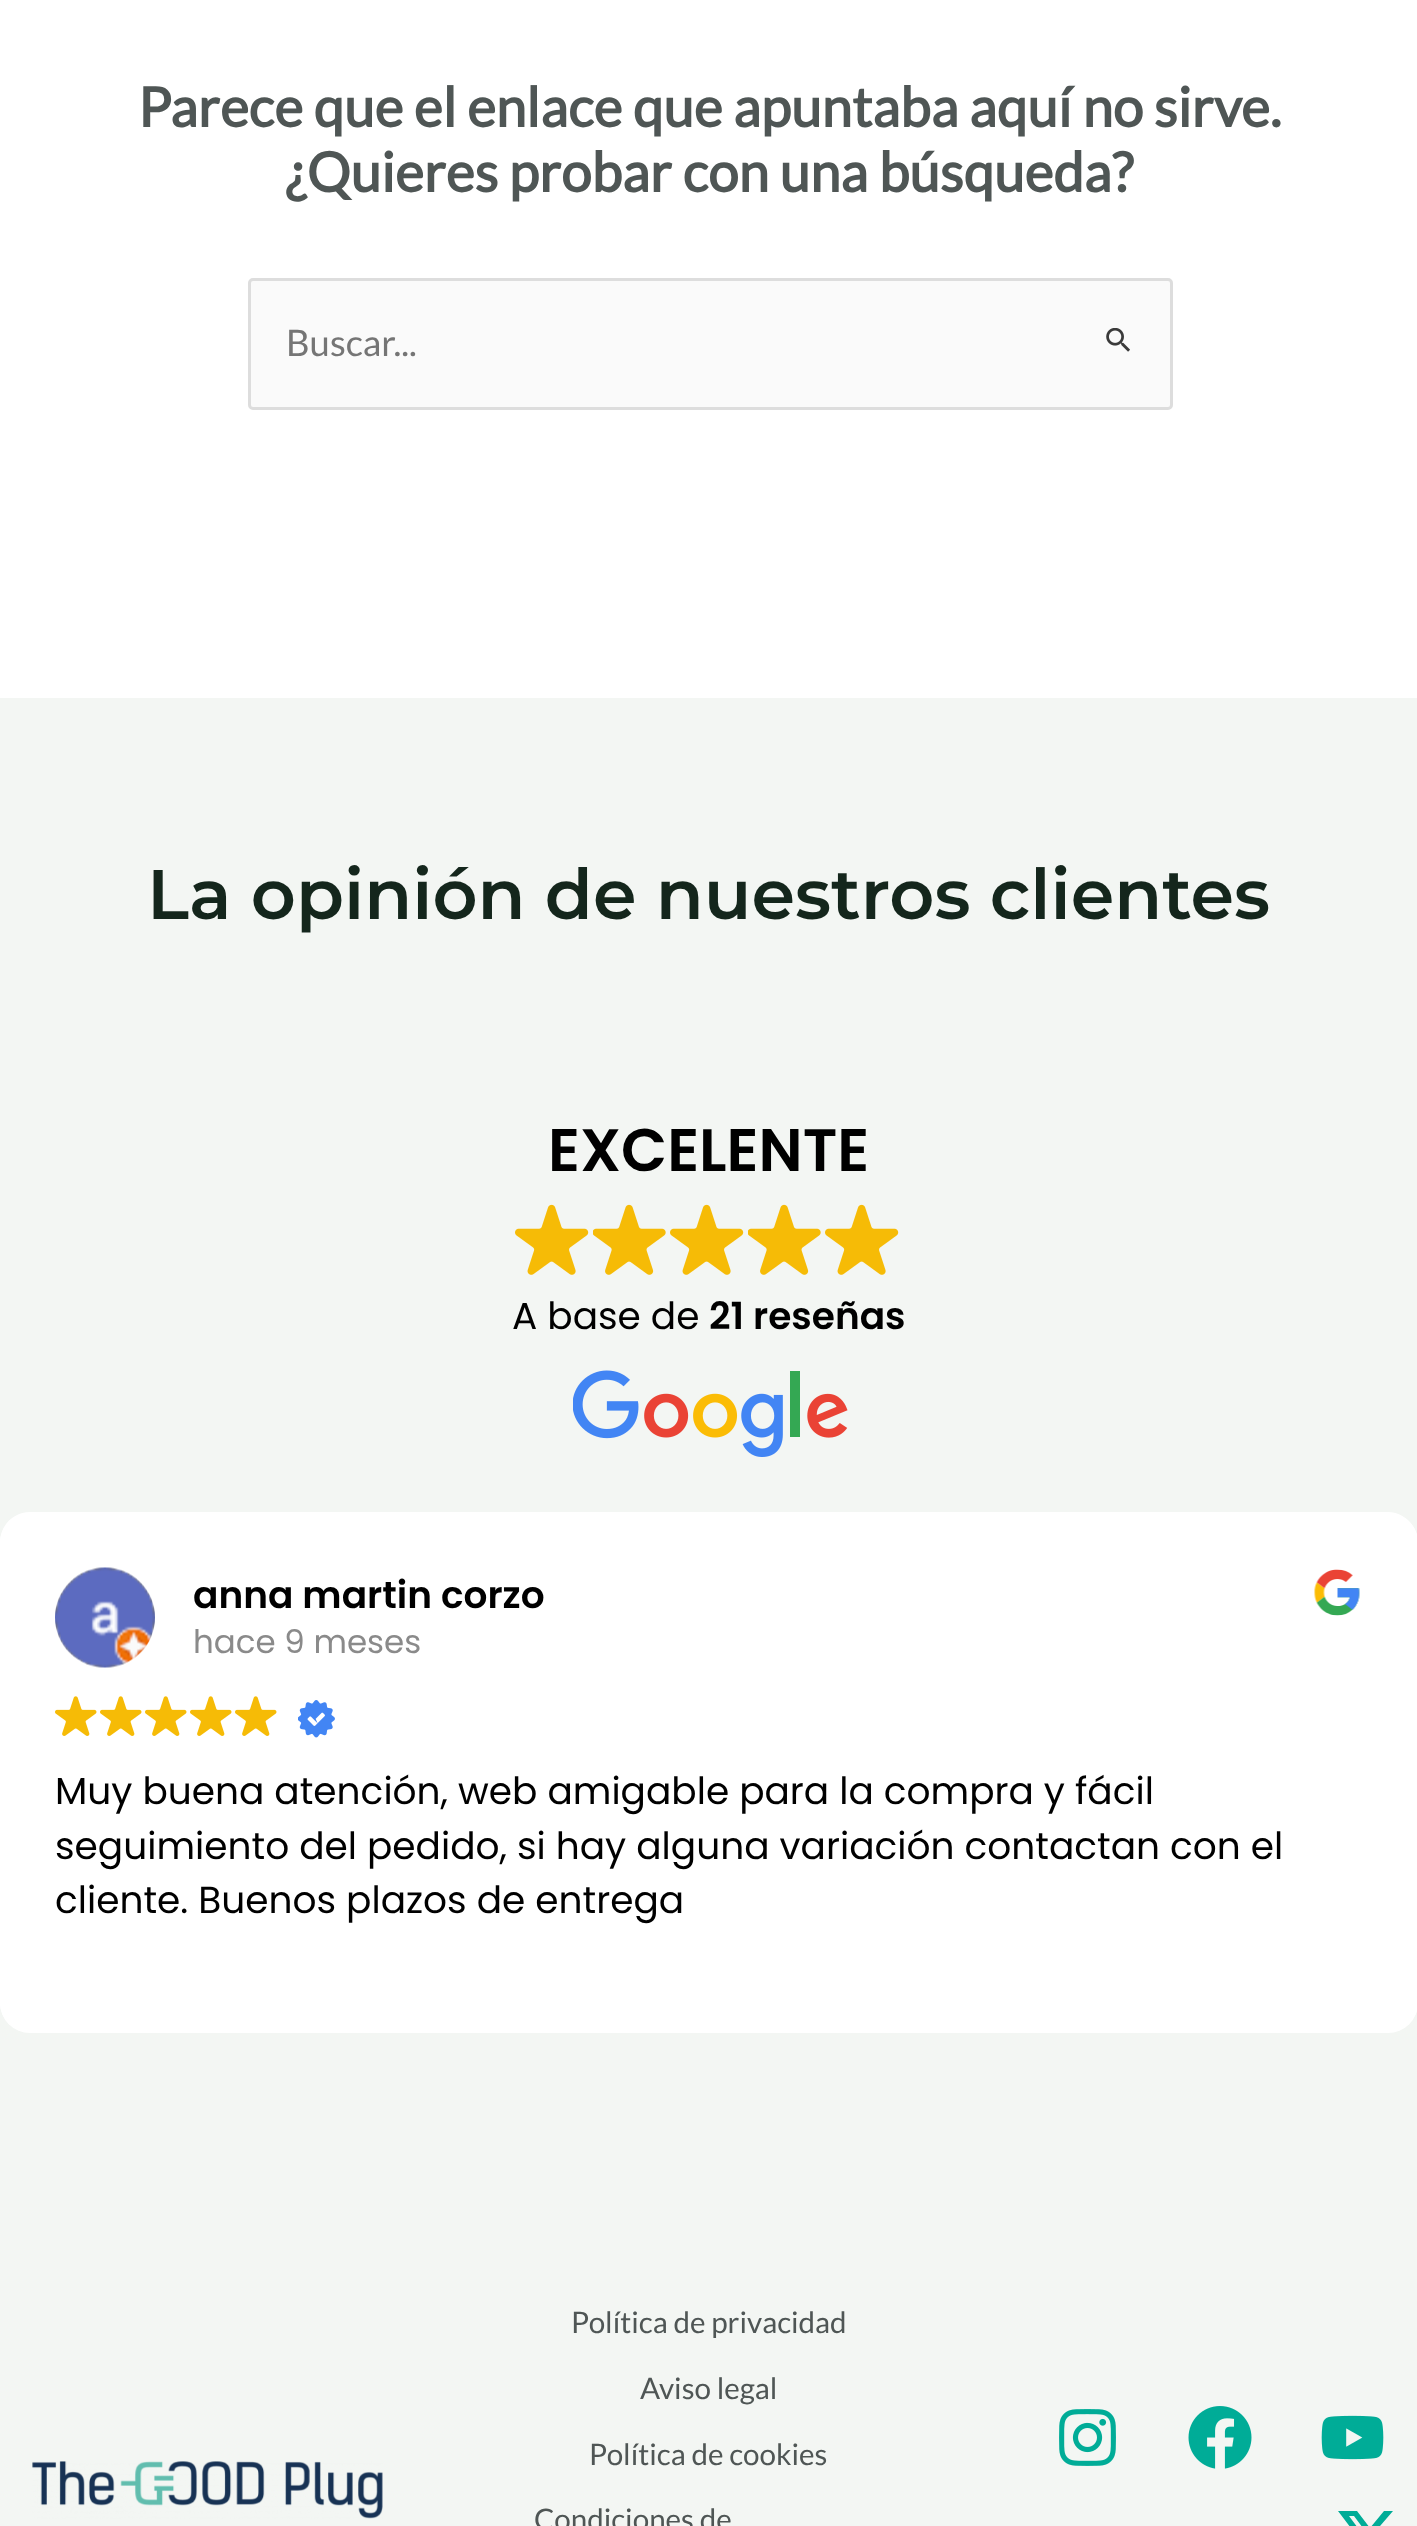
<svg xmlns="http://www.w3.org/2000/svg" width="1417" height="2526">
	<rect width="100%" height="100%" fill="#FFFFFF" />
	<g font-family="Lato" font-size="54.75" font-weight="700" fill="#4F5655">
		<text x="138" y="127">Parece que el enlace que apuntaba aquí no sirve.</text>
		<text x="285" y="192">¿Quieres probar con una búsqueda?</text>
	</g>
	<rect x="249.5" y="279.5" width="922" height="129" rx="3.5" fill="#FAFAFA" stroke="#DDDDDD" stroke-width="3" />
	<text x="286" y="356" font-family="Lato" font-size="36.5" fill="#757575">Buscar...</text>
	<image x="1106" y="328" width="24" height="24" href="assets/img1.png" />
	<rect x="0" y="698" width="1417" height="1828" fill="#F3F6F3" />
	<text x="147" y="919" font-family="Montserrat" font-size="70" font-weight="100" fill="#14261C">La opinión de nuestros clientes</text>
	<text x="548" y="1171" font-family="Poppins" font-size="60" font-weight="600" fill="#000000">EXCELENTE</text>
	<image x="515" y="1204" width="74" height="71" href="assets/img2.png" />
	<image x="593" y="1204" width="73" height="71" href="assets/img3.png" />
	<image x="670" y="1204" width="74" height="71" href="assets/img2.png" />
	<image x="748" y="1204" width="73" height="71" href="assets/img3.png" />
	<image x="825" y="1204" width="74" height="71" href="assets/img2.png" />
	<text x="512" y="1329" font-family="Poppins" font-size="37.5" fill="#000000">A base de</text>
	<text x="709" y="1329" font-family="Poppins" font-size="37.5" font-weight="600" fill="#000000">21 reseñas</text>
	<image x="573" y="1370" width="275" height="87" href="assets/img4.png" />
	<rect x="0" y="1513" width="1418" height="520" rx="30" fill="#FFFFFF" />
	<path d="M30 1512H1388C1404 1512 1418 1526 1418 1542V2002C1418 2019 1404 2032 1388 2032H30C13 2032 0 2019 0 2002V1542C0 1526 13 1512 30 1512ZM30 1518H1388C1401 1518 1412 1529 1412 1542V2002C1412 2019 1401 2032 1388 2032H30C16 2032 5 2019 5 2002V1542C5 1529 16 1518 30 1518Z" fill="#FFFFFF" fill-rule="evenodd" />
	<image x="55" y="1567" width="100" height="101" href="assets/img5.png" />
	<text x="193" y="1608" font-family="Poppins" font-size="37.5" font-weight="600" fill="#000000">anna martin corzo</text>
	<text x="193" y="1653" font-family="Poppins" font-size="32.5" fill="#8A8A8A">hace 9 meses</text>
	<image x="1314" y="1569" width="46" height="47" href="assets/img6.png" />
	<image x="55" y="1696" width="42" height="40" href="assets/img7.png" />
	<image x="100" y="1696" width="42" height="40" href="assets/img7.png" />
	<image x="145" y="1696" width="42" height="40" href="assets/img7.png" />
	<image x="190" y="1696" width="42" height="40" href="assets/img7.png" />
	<image x="235" y="1696" width="42" height="40" href="assets/img7.png" />
	<image x="298" y="1700" width="37" height="38" href="assets/img8.png" />
	<g font-family="Poppins" font-size="37.5" fill="#000000">
		<text x="55" y="1804">Muy buena atención, web amigable para la compra y fácil</text>
		<text x="55" y="1859">seguimiento del pedido, si hay alguna variación contactan con el</text>
		<text x="55" y="1913">cliente. Buenos plazos de entrega</text>
	</g>
	<image x="32" y="2461" width="351" height="58" href="assets/img9.png" />
	<g font-family="Lato" font-size="29.6" fill="#4F5655">
		<text x="571" y="2333">Política de privacidad</text>
		<text x="640" y="2399">Aviso legal</text>
		<text x="589" y="2465">Política de cookies</text>
		<text x="534" y="2530">Condiciones de</text>
	</g>
	<image x="1059" y="2409" width="57" height="57" href="assets/img10.png" />
	<image x="1188" y="2406" width="64" height="63" href="assets/img11.png" />
	<image x="1321" y="2415" width="63" height="45" href="assets/img12.png" />
	<path d="M1384 2511H1393L1374 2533L1397 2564H1379L1365 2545L1349 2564H1340L1360 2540L1338 2511H1357L1370 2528ZM1381 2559H1386L1354 2516H1349Z" fill="#00AC97" />
</svg>
